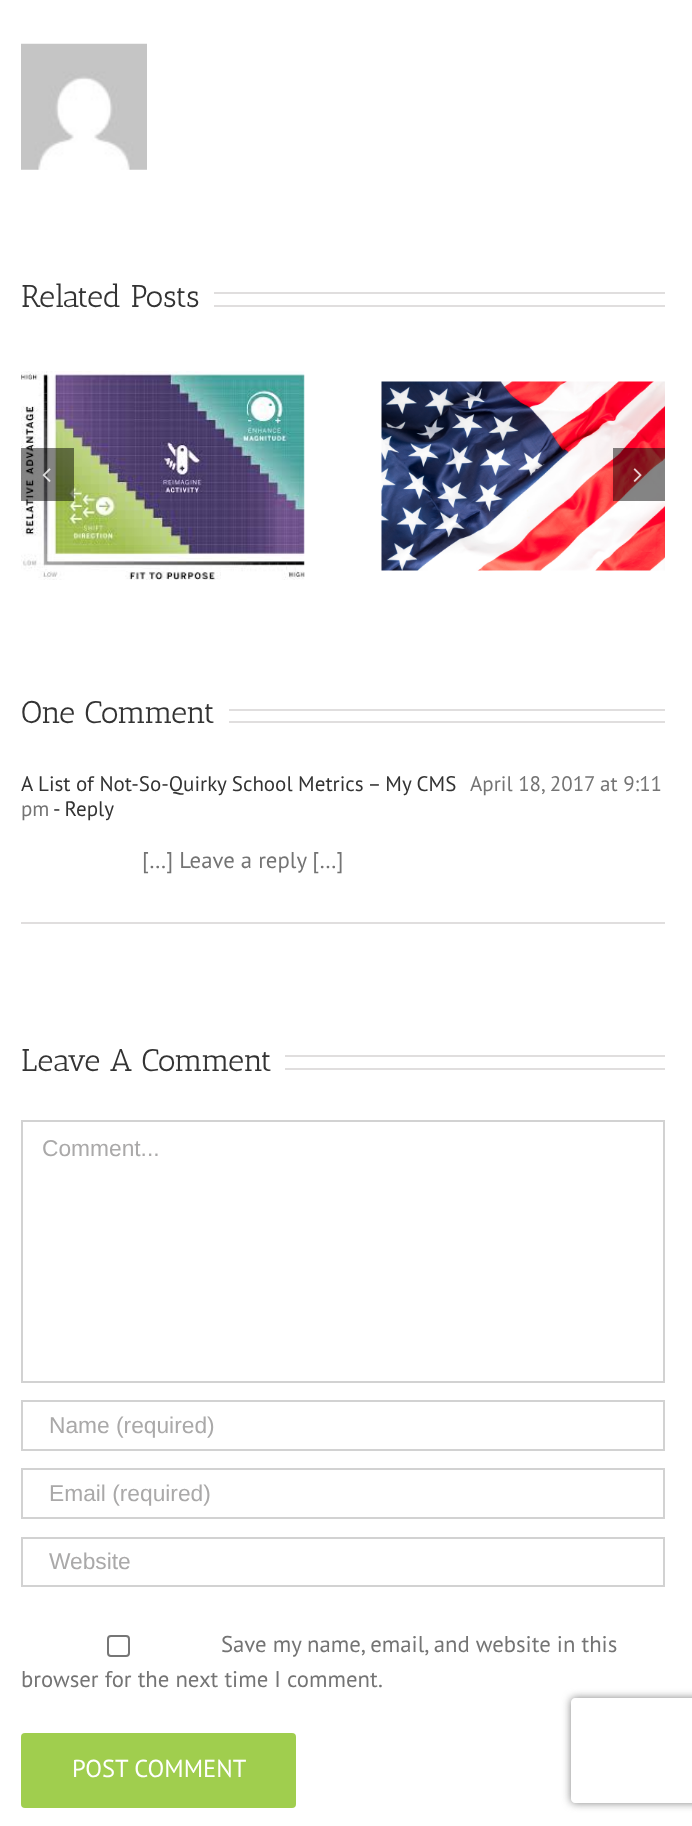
<svg xmlns="http://www.w3.org/2000/svg" width="692" height="1826">
	<defs>
		<clipPath id="clip1"><path d="M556 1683H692V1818H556ZM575 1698H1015C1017 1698 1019 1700 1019 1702V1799C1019 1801 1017 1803 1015 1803H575C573 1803 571 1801 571 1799V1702C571 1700 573 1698 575 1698Z" clip-rule="evenodd" /></clipPath>
	</defs>
	<rect width="100%" height="100%" fill="#FFFFFF" />
	<image x="21" y="43" width="126" height="127" href="assets/img1.png" />
	<text x="21" y="307" font-family="Antic Slab" font-size="31.5" fill="#333333">Related Posts</text>
	<rect x="214" y="292" width="451" height="2" fill="#E0DEDE" />
	<rect x="214" y="305" width="451" height="2" fill="#E0DEDE" />
	<image x="21" y="371" width="284" height="209" href="assets/img2.png" />
	<image x="381" y="381" width="284" height="190" href="assets/img3.png" />
	<rect x="21" y="448" width="53" height="53" fill="#000000" fill-opacity="0.48" />
	<image x="42" y="468" width="9" height="14" href="assets/img4.png" />
	<rect x="613" y="448" width="52" height="53" fill="#000000" fill-opacity="0.48" />
	<image x="633" y="468" width="9" height="14" href="assets/img5.png" />
	<text x="21" y="723" font-family="Antic Slab" font-size="31.5" fill="#333333">One Comment</text>
	<rect x="229" y="709" width="436" height="2" fill="#E0DEDE" />
	<rect x="229" y="721" width="436" height="2" fill="#E0DEDE" />
	<rect x="21" y="922" width="644" height="2" fill="#E0DEDE" />
	<text x="21" y="791" font-family="PT Sans" font-size="21" fill="#333333">A List of Not-So-Quirky School Metrics – My CMS</text>
	<g font-family="PT Sans" font-size="21" fill="#747474">
		<text x="470" y="791">April 18, 2017 at 9:11</text>
		<text x="21" y="816">pm</text>
	</g>
	<text x="53" y="816" font-family="PT Sans" font-size="21" fill="#333333">- Reply</text>
	<text x="142" y="868" font-family="PT Sans" font-size="22.75" fill="#747474">[…] Leave a reply […]</text>
	<text x="21" y="1071" font-family="Antic Slab" font-size="31.5" fill="#333333">Leave A Comment</text>
	<rect x="285" y="1055" width="380" height="2" fill="#E0DEDE" />
	<rect x="285" y="1068" width="380" height="2" fill="#E0DEDE" />
	<rect x="22" y="1121" width="642" height="261" fill="none" stroke="#D2D2D2" stroke-width="2" />
	<text x="42" y="1156" font-family="Liberation Sans" font-size="22.75" fill="#AAA9A9">Comment...</text>
	<rect x="22" y="1401" width="642" height="49" fill="none" stroke="#D2D2D2" stroke-width="2" />
	<text x="49" y="1433" font-family="Liberation Sans" font-size="22.75" fill="#AAA9A9">Name (required)</text>
	<rect x="22" y="1469" width="642" height="49" fill="none" stroke="#D2D2D2" stroke-width="2" />
	<text x="49" y="1501" font-family="Liberation Sans" font-size="22.75" fill="#AAA9A9">Email (required)</text>
	<rect x="22" y="1538" width="642" height="48" fill="none" stroke="#D2D2D2" stroke-width="2" />
	<text x="49" y="1569" font-family="Liberation Sans" font-size="22.75" fill="#AAA9A9">Website</text>
	<rect x="108" y="1636" width="21" height="20" rx="3" fill="none" stroke="#767676" stroke-width="2" />
	<g font-family="PT Sans" font-size="22.75" fill="#747474">
		<text x="221" y="1652">Save my name, email, and website in this</text>
		<text x="21" y="1687">browser for the next time I comment.</text>
	</g>
	<rect x="21" y="1733" width="275" height="75" rx="4" fill="#A0CE4E" />
	<text x="72" y="1777" font-family="PT Sans" font-size="24.5" fill="#FFFFFF">POST COMMENT</text>
	<g clip-path="url(#clip1)">
		<rect x="571" y="1698" width="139" height="105" rx="4" fill="#808080" filter="blur(4.5px)" />
	</g>
</svg>
